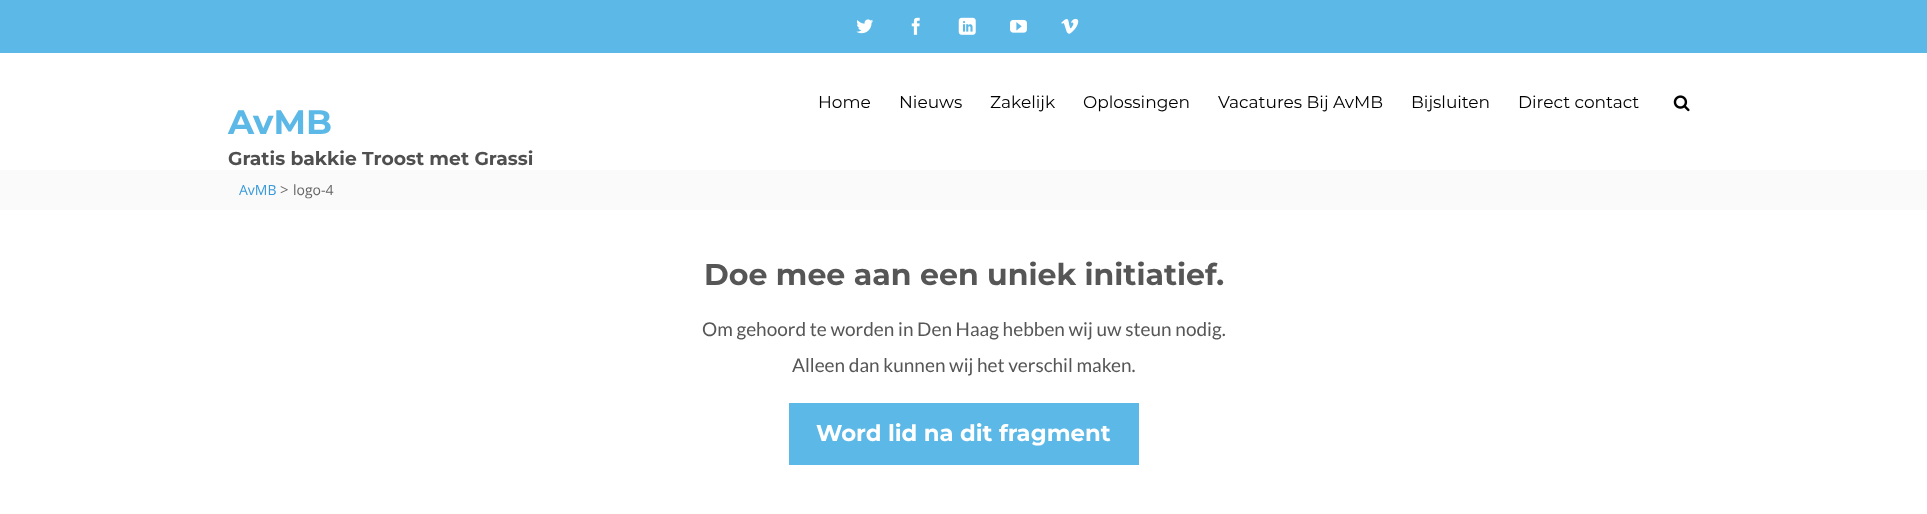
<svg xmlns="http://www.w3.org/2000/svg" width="1927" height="514">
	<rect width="100%" height="100%" fill="#FFFFFF" />
	<rect x="0" y="0" width="1927" height="53" fill="#5CB8E7" />
	<image x="856" y="19" width="18" height="15" href="assets/img1.png" />
	<image x="911" y="17" width="9" height="18" href="assets/img2.png" />
	<image x="958" y="17" width="18" height="18" href="assets/img3.png" />
	<image x="1010" y="19" width="17" height="14" href="assets/img4.png" />
	<image x="1061" y="18" width="18" height="16" href="assets/img5.png" />
	<g font-family="Montserrat" font-size="17" fill="#000000">
		<text x="818" y="108">Home</text>
		<text x="899" y="108">Nieuws</text>
		<text x="990" y="108">Zakelijk</text>
		<text x="1083" y="108">Oplossingen</text>
		<text x="1218" y="108">Vacatures Bij AvMB</text>
		<text x="1411" y="108">Bijsluiten</text>
		<text x="1518" y="108">Direct contact</text>
	</g>
	<image x="1673" y="95" width="17" height="17" href="assets/img6.png" />
	<text x="228" y="134" font-family="Montserrat" font-size="34" font-weight="700" fill="#5CB8E7">AvMB</text>
	<text x="228" y="165" font-family="Montserrat" font-size="18.75" font-weight="700" fill="#505050">Gratis bakkie Troost met Grassi</text>
	<rect x="0" y="170" width="1927" height="40" fill="#FAFAFA" />
	<text x="239" y="195" font-family="Open Sans" font-size="14" fill="#3A9AD9">AvMB</text>
	<text x="280" y="195" font-family="Open Sans" font-size="15" fill="#656565">&gt;</text>
	<text x="293" y="195" font-family="Open Sans" font-size="14" fill="#656565">logo-4</text>
	<text x="704" y="285" font-family="Montserrat" font-size="30" font-weight="700" fill="#565656">Doe mee aan een uniek initiatief.</text>
	<g font-family="Lato" font-size="19" fill="#565656">
		<text x="702" y="336">Om gehoord te worden in Den Haag hebben wij uw steun nodig.</text>
		<text x="792" y="372">Alleen dan kunnen wij het verschil maken.</text>
	</g>
	<rect x="789" y="403" width="350" height="62" fill="#5CB8E7" />
	<text x="816" y="441" font-family="Montserrat" font-size="22.75" font-weight="700" fill="#FFFFFF">Word lid na dit fragment</text>
</svg>
